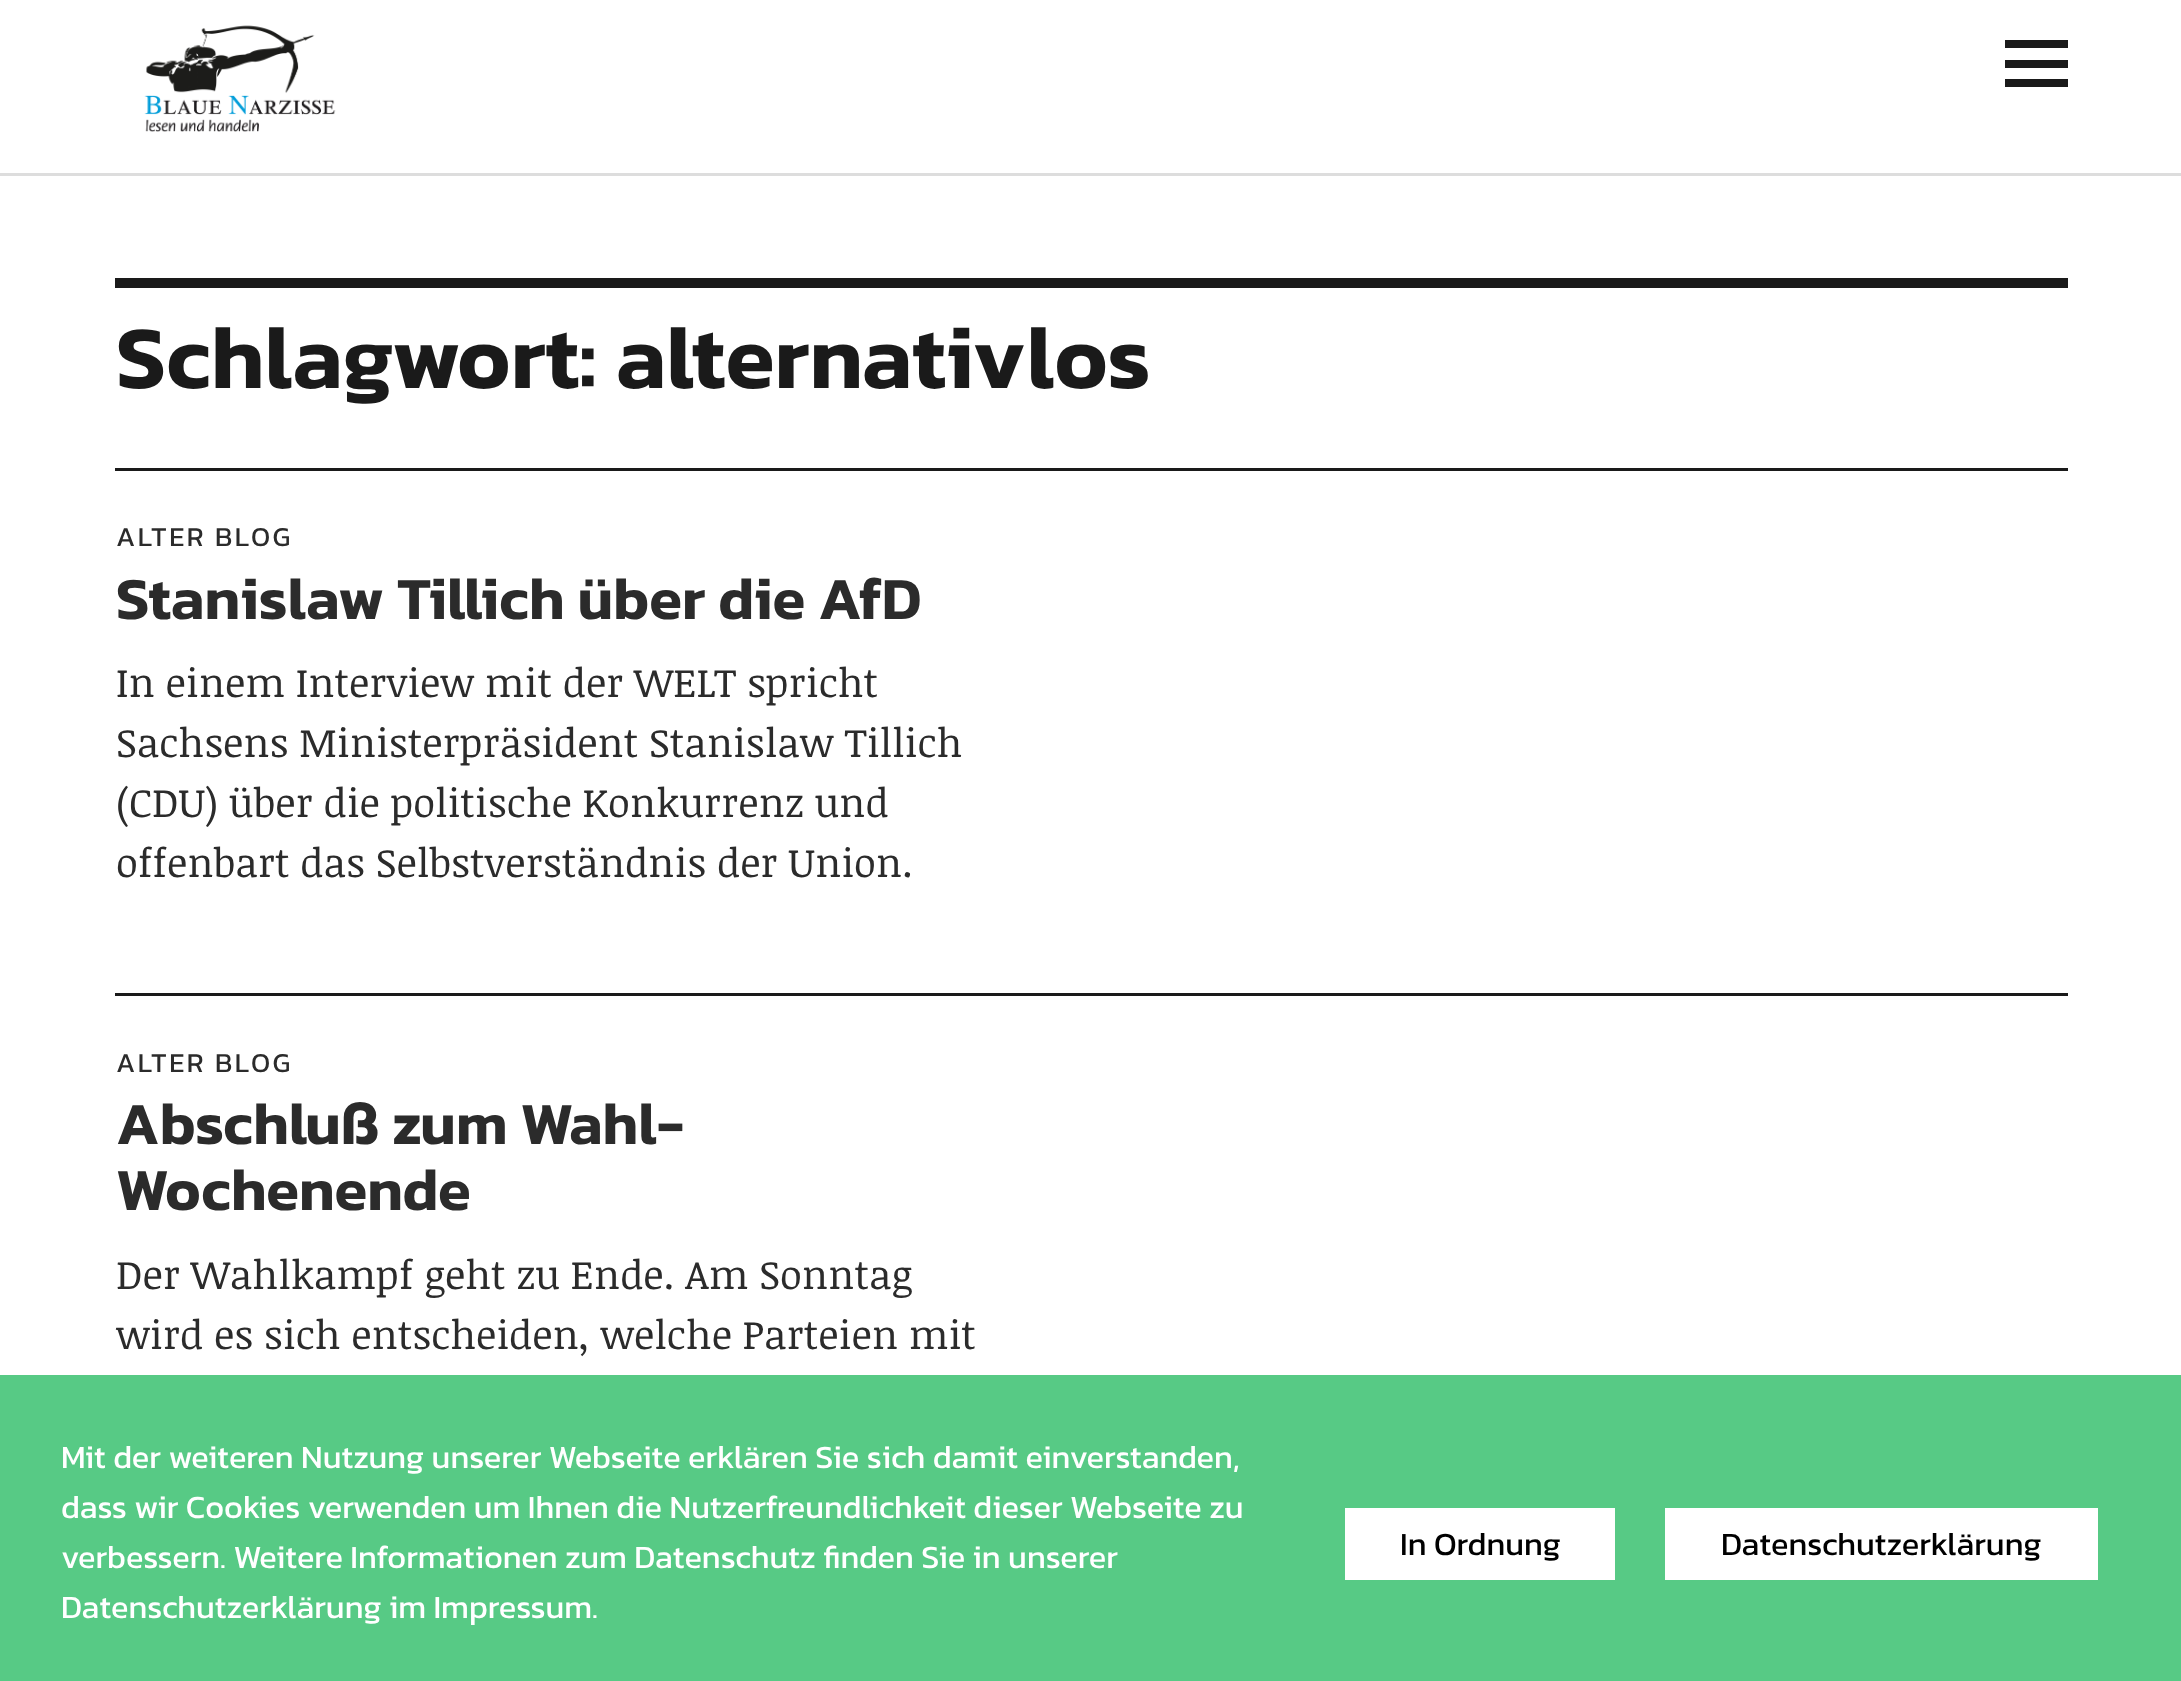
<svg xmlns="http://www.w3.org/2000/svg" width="2181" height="1681">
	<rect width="100%" height="100%" fill="#FFFFFF" />
	<rect x="0" y="173" width="2181" height="3" fill="#DDDDDD" />
	<image x="144" y="25" width="192" height="107" href="assets/img1.png" />
	<path d="M2005 87V79H2068V87ZM2005 40H2068V48H2005ZM2005 68V60H2068V68Z" fill="#1A1A1A" />
	<rect x="115" y="278" width="1953" height="10" fill="#1A1A1A" />
	<text x="116" y="388" font-family="Kanit" font-size="90" font-weight="600" fill="#1A1A1A">Schlagwort: alternativlos</text>
	<rect x="115" y="468" width="1953" height="3" fill="#1A1A1A" />
	<text x="116" y="546" font-family="Kanit" font-size="27.5" letter-spacing="2.5" fill="#2B2B2B">ALTER BLOG</text>
	<text x="116" y="619" font-family="Kanit" font-size="60" font-weight="600" fill="#2B2B2B">Stanislaw Tillich über die AfD</text>
	<g font-family="Noticia Text" font-size="40" fill="#2B2B2B">
		<text x="116" y="697">In einem Interview mit der WELT spricht</text>
		<text x="116" y="757">Sachsens Ministerpräsident Stanislaw Tillich</text>
		<text x="116" y="817">(CDU) über die politische Konkurrenz und</text>
		<text x="116" y="877">offenbart das Selbstverständnis der Union.</text>
	</g>
	<rect x="115" y="993" width="1953" height="3" fill="#1A1A1A" />
	<text x="116" y="1072" font-family="Kanit" font-size="27.5" letter-spacing="2.5" fill="#2B2B2B">ALTER BLOG</text>
	<g font-family="Kanit" font-size="60" font-weight="600" fill="#2B2B2B">
		<text x="116" y="1144">Abschluß zum Wahl-</text>
		<text x="116" y="1210">Wochenende</text>
	</g>
	<g font-family="Noticia Text" font-size="40" fill="#2B2B2B">
		<text x="116" y="1289">Der Wahlkampf geht zu Ende. Am Sonntag</text>
		<text x="116" y="1349">wird es sich entscheiden, welche Parteien mit</text>
	</g>
	<rect x="0" y="1375" width="2181" height="306" fill="#57CA85" />
	<g font-family="Kanit" font-size="32.5" fill="#FFFFFF">
		<text x="61" y="1468">Mit der weiteren Nutzung unserer Webseite erklären Sie sich damit einverstanden,</text>
		<text x="61" y="1518">dass wir Cookies verwenden um Ihnen die Nutzerfreundlichkeit dieser Webseite zu</text>
		<text x="61" y="1568">verbessern. Weitere Informationen zum Datenschutz finden Sie in unserer</text>
		<text x="61" y="1618">Datenschutzerklärung im Impressum.</text>
	</g>
	<rect x="1345" y="1508" width="270" height="72" fill="#FFFFFF" />
	<text x="1400" y="1555" font-family="Kanit" font-size="32.5" fill="#000000">In Ordnung</text>
	<rect x="1665" y="1508" width="433" height="72" fill="#FFFFFF" />
	<text x="1721" y="1555" font-family="Kanit" font-size="32.5" fill="#000000">Datenschutzerklärung</text>
</svg>
